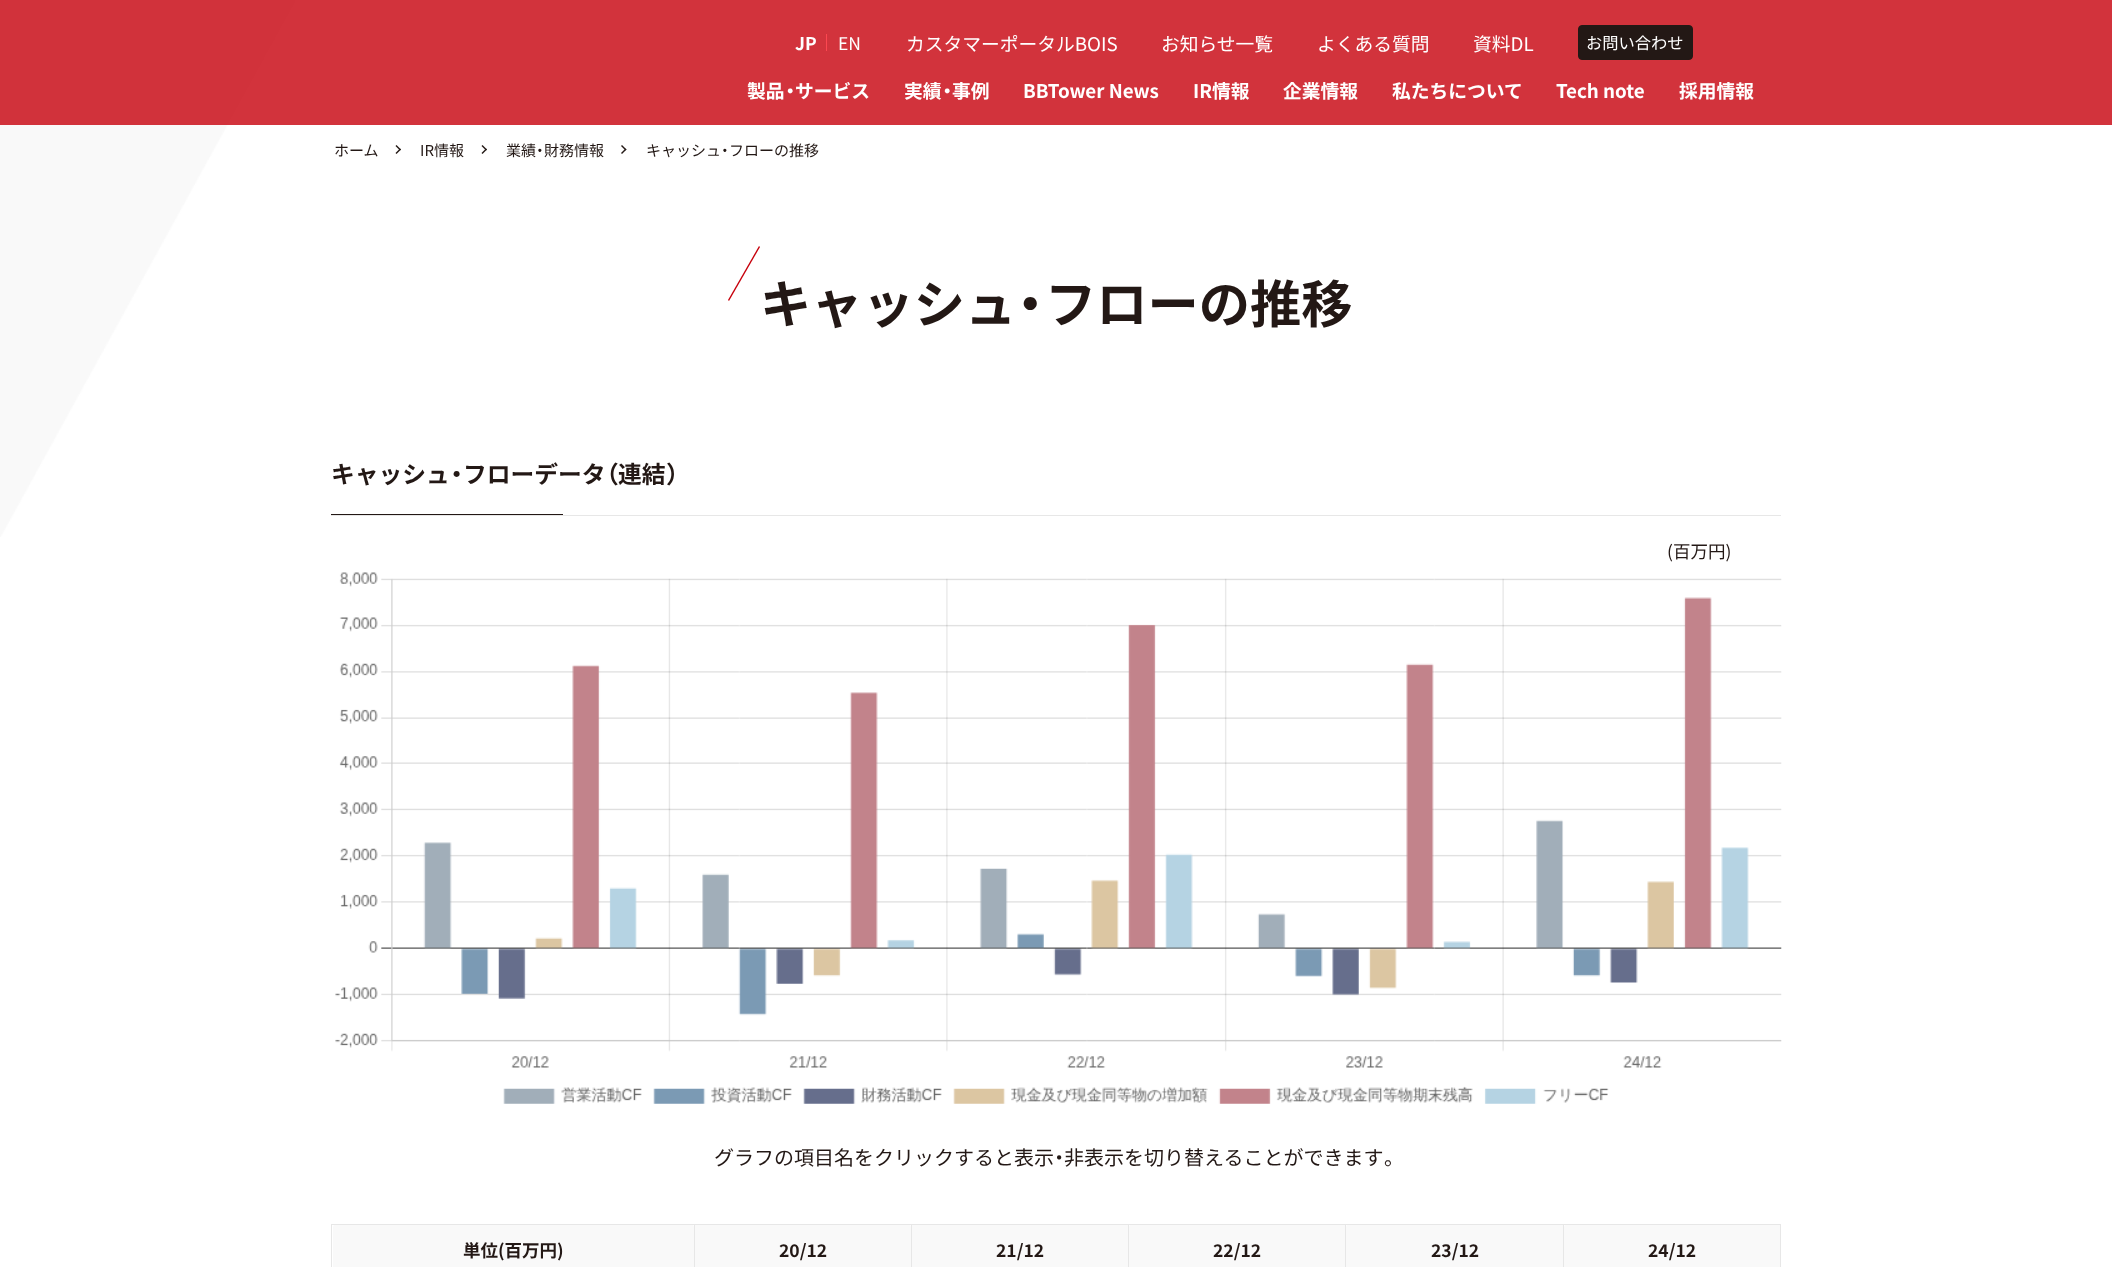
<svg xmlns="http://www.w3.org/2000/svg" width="2112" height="1267">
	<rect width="100%" height="100%" fill="#FFFFFF" />
	<image x="0" y="0" width="295" height="537" href="assets/img1.png" />
	<rect x="0" y="0" width="2112" height="125" fill="#C7000B" fill-opacity="0.8" />
	<rect x="826" y="34" width="1" height="17" fill="#FC4751" />
	<text x="795" y="50" font-family="Noto Sans JP" font-size="17.5" font-weight="700" fill="#FFFFFF">JP</text>
	<text x="838" y="50" font-family="Noto Sans JP" font-size="17.5" fill="#FFFFFF">EN</text>
	<g font-family="Noto Sans JP" font-size="18.75" fill="#FFFFFF">
		<text x="906" y="51">カスタマーポータルBOIS</text>
		<text x="1161" y="51">お知らせ一覧</text>
		<text x="1317" y="51">よくある質問</text>
		<text x="1473" y="51">資料DL</text>
	</g>
	<rect x="1578.5" y="25.5" width="114" height="34" rx="3.5" fill="#231815" stroke="#231815" />
	<text x="1586" y="49" font-family="Noto Sans JP" font-size="16.25" fill="#FFFFFF">お問い合わせ</text>
	<text x="747" y="98" font-family="Noto Sans JP" font-size="18.75" font-weight="700" fill="#FFFFFF">製品</text>
	<text x="785" y="98" font-family="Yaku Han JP" font-size="18.75" font-weight="700" fill="#FFFFFF">・</text>
	<g font-family="Noto Sans JP" font-size="18.75" font-weight="700" fill="#FFFFFF">
		<text x="795" y="98">サービス</text>
		<text x="904" y="98">実績</text>
	</g>
	<text x="942" y="98" font-family="Yaku Han JP" font-size="18.75" font-weight="700" fill="#FFFFFF">・</text>
	<g font-family="Noto Sans JP" font-size="18.75" font-weight="700" fill="#FFFFFF">
		<text x="952" y="98">事例</text>
		<text x="1023" y="98">BBTower News</text>
		<text x="1193" y="98">IR情報</text>
		<text x="1283" y="98">企業情報</text>
		<text x="1392" y="98">私たちについて</text>
		<text x="1556" y="98">Tech note</text>
		<text x="1679" y="98">採用情報</text>
	</g>
	<text x="334" y="156" font-family="Noto Sans JP" font-size="15" fill="#231815">ホーム</text>
	<path d="M396.5 145L401 149.5L400 150.5L395.5 146Z" fill="#231815" />
	<path d="M400 148.5L401 149.5L396.5 154L395.5 153Z" fill="#231815" />
	<text x="420" y="156" font-family="Noto Sans JP" font-size="15" fill="#231815">IR情報</text>
	<path d="M482.5 145L487 149.5L486 150.5L481.5 146Z" fill="#231815" />
	<path d="M486 148.5L487 149.5L482.5 154L481.5 153Z" fill="#231815" />
	<text x="506" y="156" font-family="Noto Sans JP" font-size="15" fill="#231815">業績</text>
	<text x="536" y="156" font-family="Yaku Han JP" font-size="15" fill="#231815">・</text>
	<text x="544" y="156" font-family="Noto Sans JP" font-size="15" fill="#231815">財務情報</text>
	<path d="M622 145L626.5 149.5L625.5 150.5L621 146Z" fill="#231815" />
	<path d="M625.5 148.5L626.5 149.5L622 154L621 153Z" fill="#231815" />
	<text x="646" y="156" font-family="Noto Sans JP" font-size="15" fill="#231815">キャッシュ</text>
	<text x="721" y="156" font-family="Yaku Han JP" font-size="15" fill="#231815">・</text>
	<text x="729" y="156" font-family="Noto Sans JP" font-size="15" fill="#231815">フローの推移</text>
	<path d="M759 246L760 247L729 301L728 300Z" fill="#C7000B" />
	<text x="760" y="323" font-family="Noto Sans JP" font-size="51.25" font-weight="700" fill="#231815">キャッシュ</text>
	<text x="1016" y="323" font-family="Yaku Han JP" font-size="51.25" font-weight="700" fill="#231815">・</text>
	<text x="1045" y="323" font-family="Noto Sans JP" font-size="51.25" font-weight="700" fill="#231815">フローの推移</text>
	<rect x="331" y="515" width="1450" height="1" fill="#E7E7E7" />
	<text x="331" y="483" font-family="Noto Sans JP" font-size="23.75" font-weight="700" fill="#231815">キャッシュ</text>
	<text x="450" y="483" font-family="Yaku Han JP" font-size="23.75" font-weight="700" fill="#231815">・</text>
	<text x="463" y="483" font-family="Noto Sans JP" font-size="23.75" font-weight="700" fill="#231815">フローデータ</text>
	<text x="606" y="483" font-family="Yaku Han JP" font-size="23.75" font-weight="700" fill="#231815">（</text>
	<text x="618" y="483" font-family="Noto Sans JP" font-size="23.75" font-weight="700" fill="#231815">連結</text>
	<text x="666" y="483" font-family="Yaku Han JP" font-size="23.75" font-weight="700" fill="#231815">）</text>
	<rect x="331" y="514" width="232" height="1" fill="#231815" />
	<text x="1667" y="558" font-family="Noto Sans JP" font-size="17.5" fill="#231815">(百万円)</text>
	<image x="335" y="572" width="1447" height="532" href="assets/img2.png" />
	<text x="714" y="1165" font-family="Noto Sans JP" font-size="20" fill="#231815">グラフの項目名をクリックすると表示</text>
	<text x="1054" y="1165" font-family="Yaku Han JP" font-size="20" fill="#231815">・</text>
	<text x="1064" y="1165" font-family="Noto Sans JP" font-size="20" fill="#231815">非表示を切り替えることができます</text>
	<text x="1384" y="1165" font-family="Yaku Han JP" font-size="20" fill="#231815">。</text>
	<rect x="331" y="1224" width="1" height="43" fill="#E7E7E7" />
	<rect x="333" y="1224" width="361" height="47" rx="4" fill="#F9F9F9" />
	<rect x="694" y="1224" width="217" height="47" rx="4" fill="#F9F9F9" />
	<rect x="911" y="1224" width="218" height="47" rx="4" fill="#F9F9F9" />
	<rect x="1129" y="1224" width="217" height="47" rx="4" fill="#F9F9F9" />
	<rect x="1346" y="1224" width="218" height="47" rx="4" fill="#F9F9F9" />
	<rect x="1564" y="1224" width="217" height="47" rx="4" fill="#F9F9F9" />
	<rect x="331" y="1224" width="1450" height="1" fill="#E7E7E7" />
	<rect x="694" y="1224" width="1" height="43" fill="#E7E7E7" />
	<text x="463" y="1257" font-family="Noto Sans JP" font-size="17.5" font-weight="700" fill="#231815">単位(百万円)</text>
	<rect x="911" y="1224" width="1" height="43" fill="#E7E7E7" />
	<text x="779" y="1257" font-family="Noto Sans JP" font-size="17.5" font-weight="700" fill="#231815">20/12</text>
	<rect x="1128" y="1224" width="1" height="43" fill="#E7E7E7" />
	<text x="996" y="1257" font-family="Noto Sans JP" font-size="17.5" font-weight="700" fill="#231815">21/12</text>
	<rect x="1345" y="1224" width="1" height="43" fill="#E7E7E7" />
	<text x="1213" y="1257" font-family="Noto Sans JP" font-size="17.5" font-weight="700" fill="#231815">22/12</text>
	<rect x="1563" y="1224" width="1" height="43" fill="#E7E7E7" />
	<text x="1431" y="1257" font-family="Noto Sans JP" font-size="17.5" font-weight="700" fill="#231815">23/12</text>
	<rect x="1780" y="1224" width="1" height="43" fill="#E7E7E7" />
	<text x="1648" y="1257" font-family="Noto Sans JP" font-size="17.5" font-weight="700" fill="#231815">24/12</text>
</svg>
